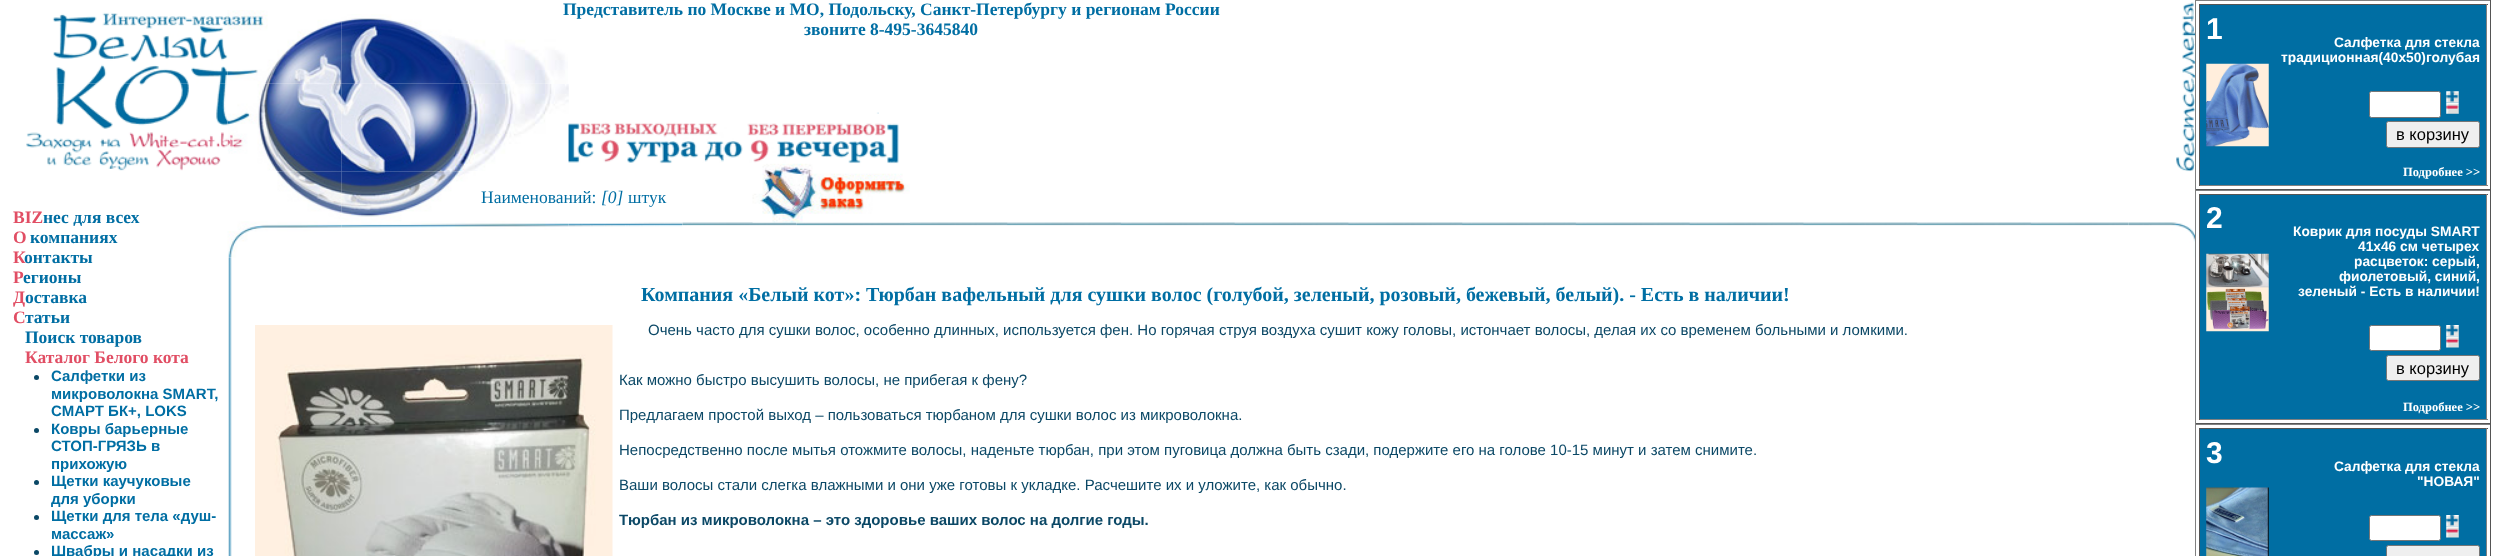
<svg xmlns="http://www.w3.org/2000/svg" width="2495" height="556">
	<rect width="100%" height="100%" fill="#FFFFFF" />
	<g font-family="Liberation Serif" font-size="17.5" font-weight="700" fill="#006EA3">
		<text x="563" y="15">Представитель по Москве и МО, Подольску, Санкт-Петербургу и регионам России</text>
		<text x="804" y="35">звоните 8-495-3645840</text>
	</g>
	<image x="52" y="12" width="62" height="72" href="assets/img1.png" />
	<image x="227" y="83" width="115" height="89" href="assets/img9.png" />
	<image x="113" y="13" width="115" height="71" href="assets/img2.png" />
	<image x="341" y="83" width="114" height="89" href="assets/img10.png" />
	<image x="227" y="10" width="115" height="74" href="assets/img3.png" />
	<image x="341" y="14" width="114" height="70" href="assets/img4.png" />
	<image x="455" y="83" width="114" height="89" href="assets/img11.png" />
	<image x="455" y="38" width="113" height="46" href="assets/img5.png" />
	<image x="2176" y="83" width="19" height="89" href="assets/img18.png" />
	<image x="2182" y="0" width="13" height="84" href="assets/img6.png" />
	<image x="26" y="83" width="88" height="86" href="assets/img7.png" />
	<image x="113" y="83" width="115" height="88" href="assets/img8.png" />
	<image x="568" y="122" width="115" height="42" href="assets/img12.png" />
	<image x="682" y="123" width="115" height="40" href="assets/img14.png" />
	<image x="568" y="123" width="115" height="40" href="assets/img13.png" />
	<image x="796" y="112" width="103" height="52" href="assets/img16.png" />
	<image x="682" y="124" width="115" height="33" href="assets/img15.png" />
	<image x="796" y="125" width="1" height="29" href="assets/img17.png" />
	<image x="227" y="171" width="115" height="87" href="assets/img19.png" />
	<image x="341" y="171" width="114" height="59" href="assets/img20.png" />
	<image x="455" y="171" width="114" height="59" href="assets/img21.png" />
	<image x="568" y="222" width="115" height="5" href="assets/img22.png" />
	<image x="682" y="222" width="115" height="4" href="assets/img23.png" />
	<image x="796" y="222" width="114" height="4" href="assets/img24.png" />
	<image x="910" y="222" width="1219" height="4" href="assets/img25.png" />
	<image x="2128" y="171" width="67" height="86" href="assets/img26.png" />
	<text x="13" y="223" font-family="Liberation Serif" font-size="17.5" font-weight="700" fill="#E14E64">BIZ</text>
	<text x="43" y="223" font-family="Liberation Serif" font-size="17.5" font-weight="700" fill="#006EA3">нес для всех</text>
	<text x="13" y="243" font-family="Liberation Serif" font-size="17.5" font-weight="700" fill="#E14E64">О</text>
	<text x="30" y="243" font-family="Liberation Serif" font-size="17.5" font-weight="700" fill="#006EA3">компаниях</text>
	<text x="13" y="263" font-family="Liberation Serif" font-size="17.5" font-weight="700" fill="#E14E64">К</text>
	<text x="24" y="263" font-family="Liberation Serif" font-size="17.5" font-weight="700" fill="#006EA3">онтакты</text>
	<text x="13" y="283" font-family="Liberation Serif" font-size="17.5" font-weight="700" fill="#E14E64">Р</text>
	<text x="23" y="283" font-family="Liberation Serif" font-size="17.5" font-weight="700" fill="#006EA3">егионы</text>
	<text x="13" y="303" font-family="Liberation Serif" font-size="17.5" font-weight="700" fill="#E14E64">Д</text>
	<text x="25" y="303" font-family="Liberation Serif" font-size="17.5" font-weight="700" fill="#006EA3">оставка</text>
	<text x="13" y="323" font-family="Liberation Serif" font-size="17.5" font-weight="700" fill="#E14E64">С</text>
	<g font-family="Liberation Serif" font-size="17.5" font-weight="700" fill="#006EA3">
		<text x="25" y="323">татьи</text>
		<text x="25" y="343">Поиск товаров</text>
	</g>
	<text x="25" y="363" font-family="Liberation Serif" font-size="17.5" font-weight="700" fill="#E14E64">Каталог Белого кота</text>
	<circle cx="36.5" cy="377.5" r="2.5" fill="#0B4866" />
	<g font-family="Liberation Sans" font-size="15" font-weight="700" fill="#006EA3">
		<text x="51" y="381">Салфетки из</text>
		<text x="51" y="399">микроволокна SMART,</text>
		<text x="51" y="416">СМАРТ БК+, LOKS</text>
	</g>
	<circle cx="36.5" cy="430.5" r="2.5" fill="#0B4866" />
	<g font-family="Liberation Sans" font-size="15" font-weight="700" fill="#006EA3">
		<text x="51" y="434">Ковры барьерные</text>
		<text x="51" y="451">СТОП-ГРЯЗЬ в</text>
		<text x="51" y="469">прихожую</text>
	</g>
	<circle cx="36.5" cy="482.5" r="2.5" fill="#0B4866" />
	<g font-family="Liberation Sans" font-size="15" font-weight="700" fill="#006EA3">
		<text x="51" y="486">Щетки каучуковые</text>
		<text x="51" y="504">для уборки</text>
	</g>
	<circle cx="36.5" cy="517.5" r="2.5" fill="#0B4866" />
	<g font-family="Liberation Sans" font-size="15" font-weight="700" fill="#006EA3">
		<text x="51" y="521">Щетки для тела «душ-</text>
		<text x="51" y="539">массаж»</text>
	</g>
	<circle cx="36.5" cy="552.5" r="2.5" fill="#0B4866" />
	<text x="51" y="556" font-family="Liberation Sans" font-size="15" font-weight="700" fill="#006EA3">Швабры и насадки из</text>
	<image x="228" y="257" width="4" height="299" href="assets/img27.png" />
	<text x="641" y="301" font-family="Liberation Serif" font-size="20" font-weight="700" fill="#006EA3">Компания «Белый кот»: Тюрбан вафельный для сушки волос (голубой, зеленый, розовый, бежевый, белый). - Есть в наличии!</text>
	<image x="255" y="325" width="358" height="231" href="assets/img28.png" />
	<g font-family="Liberation Sans" font-size="15" fill="#0B4866">
		<text x="648" y="335">Очень часто для сушки волос, особенно длинных, используется фен. Но горячая струя воздуха сушит кожу головы, истончает волосы, делая их со временем больными и ломкими.</text>
		<text x="619" y="385">Как можно быстро высушить волосы, не прибегая к фену?</text>
		<text x="619" y="420">Предлагаем простой выход – пользоваться тюрбаном для сушки волос из микроволокна.</text>
		<text x="619" y="455">Непосредственно после мытья отожмите волосы, наденьте тюрбан, при этом пуговица должна быть сзади, подержите его на голове 10-15 минут и затем снимите.</text>
		<text x="619" y="490">Ваши волосы стали слегка влажными и они уже готовы к укладке. Расчешите их и уложите, как обычно.</text>
	</g>
	<text x="619" y="525" font-family="Liberation Sans" font-size="15" font-weight="700" fill="#0B4866">Тюрбан из микроволокна – это здоровье ваших волос на долгие годы.</text>
	<rect x="2195" y="0" width="296" height="1" fill="#808080" />
	<rect x="2490" y="0" width="1" height="190" fill="#555555" />
	<rect x="2195" y="189" width="296" height="1" fill="#555555" />
	<rect x="2195" y="0" width="1" height="190" fill="#808080" />
	<rect x="2199" y="4" width="289" height="1" fill="#555555" />
	<rect x="2486" y="4" width="1" height="182" fill="#808080" />
	<rect x="2199" y="185" width="289" height="1" fill="#808080" />
	<rect x="2199" y="4" width="1" height="182" fill="#555555" />
	<rect x="2200" y="5" width="286" height="180" fill="#006EA3" />
	<text x="2206" y="39" font-family="Liberation Sans" font-size="30" font-weight="700" fill="#FFFFFF">1</text>
	<image x="2206" y="63" width="63" height="84" href="assets/img29.png" />
	<g font-family="Liberation Sans" font-size="13.75" font-weight="700" fill="#FFFFFF">
		<text x="2334" y="47">Салфетка для стекла</text>
		<text x="2281" y="62">традиционная(40x50)голубая</text>
	</g>
	<rect x="2369.5" y="91.5" width="71" height="26" rx="2" fill="#FFFFFF" stroke="#767676" />
	<image x="2446" y="91" width="13" height="12" href="assets/img30.png" />
	<image x="2446" y="102" width="13" height="12" href="assets/img31.png" />
	<rect x="2386.5" y="121.5" width="93" height="26" rx="2" fill="#EFEFEF" stroke="#767676" />
	<text x="2396" y="140" font-family="Liberation Sans" font-size="16.5" fill="#000000">в корзину</text>
	<text x="2403" y="176" font-family="Liberation Serif" font-size="12.5" font-weight="700" fill="#FFFFFF">Подробнее &gt;&gt;</text>
	<rect x="2195" y="190" width="296" height="1" fill="#808080" />
	<rect x="2490" y="190" width="1" height="234" fill="#555555" />
	<rect x="2195" y="423" width="296" height="1" fill="#555555" />
	<rect x="2195" y="190" width="1" height="234" fill="#808080" />
	<rect x="2199" y="194" width="289" height="1" fill="#555555" />
	<rect x="2486" y="194" width="1" height="226" fill="#808080" />
	<rect x="2199" y="419" width="289" height="1" fill="#808080" />
	<rect x="2199" y="194" width="1" height="226" fill="#555555" />
	<rect x="2200" y="195" width="286" height="224" fill="#006EA3" />
	<text x="2206" y="228" font-family="Liberation Sans" font-size="30" font-weight="700" fill="#FFFFFF">2</text>
	<image x="2206" y="253" width="63" height="79" href="assets/img32.png" />
	<g font-family="Liberation Sans" font-size="13.75" font-weight="700" fill="#FFFFFF">
		<text x="2293" y="236">Коврик для посуды SMART</text>
		<text x="2358" y="251">41х46 см четырех</text>
		<text x="2354" y="266">расцветок: серый,</text>
		<text x="2339" y="281">фиолетовый, синий,</text>
		<text x="2298" y="296">зеленый - Есть в наличии!</text>
	</g>
	<rect x="2369.5" y="325.5" width="71" height="25" rx="2" fill="#FFFFFF" stroke="#767676" />
	<image x="2446" y="325" width="13" height="12" href="assets/img33.png" />
	<image x="2446" y="336" width="13" height="12" href="assets/img34.png" />
	<rect x="2386.5" y="355.5" width="93" height="25" rx="2" fill="#EFEFEF" stroke="#767676" />
	<text x="2396" y="374" font-family="Liberation Sans" font-size="16.5" fill="#000000">в корзину</text>
	<text x="2403" y="411" font-family="Liberation Serif" font-size="12.5" font-weight="700" fill="#FFFFFF">Подробнее &gt;&gt;</text>
	<rect x="2195" y="424" width="296" height="1" fill="#808080" />
	<rect x="2490" y="424" width="1" height="132" fill="#555555" />
	<rect x="2195" y="424" width="1" height="132" fill="#808080" />
	<rect x="2199" y="428" width="289" height="1" fill="#555555" />
	<rect x="2486" y="428" width="1" height="128" fill="#808080" />
	<rect x="2199" y="428" width="1" height="128" fill="#555555" />
	<rect x="2200" y="429" width="286" height="127" fill="#006EA3" />
	<text x="2206" y="463" font-family="Liberation Sans" font-size="30" font-weight="700" fill="#FFFFFF">3</text>
	<image x="2206" y="487" width="63" height="69" href="assets/img35.png" />
	<g font-family="Liberation Sans" font-size="13.75" font-weight="700" fill="#FFFFFF">
		<text x="2334" y="471">Салфетка для стекла</text>
		<text x="2417" y="486">"НОВАЯ"</text>
	</g>
	<rect x="2369.5" y="515.5" width="71" height="25" rx="2" fill="#FFFFFF" stroke="#767676" />
	<image x="2446" y="515" width="13" height="12" href="assets/img33.png" />
	<image x="2446" y="526" width="13" height="12" href="assets/img34.png" />
	<rect x="2386.5" y="545.5" width="93" height="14" rx="2" fill="#EFEFEF" stroke="#767676" />
	<text x="481" y="203" font-family="Liberation Serif" font-size="17.5" fill="#006EA3">Наименований:</text>
	<text x="601" y="203" font-family="Liberation Serif" font-size="17.5" font-style="italic" fill="#006EA3">[0]</text>
	<text x="628" y="203" font-family="Liberation Serif" font-size="17.5" fill="#006EA3">штук</text>
	<image x="752" y="163" width="158" height="60" href="assets/img36.png" />
</svg>
